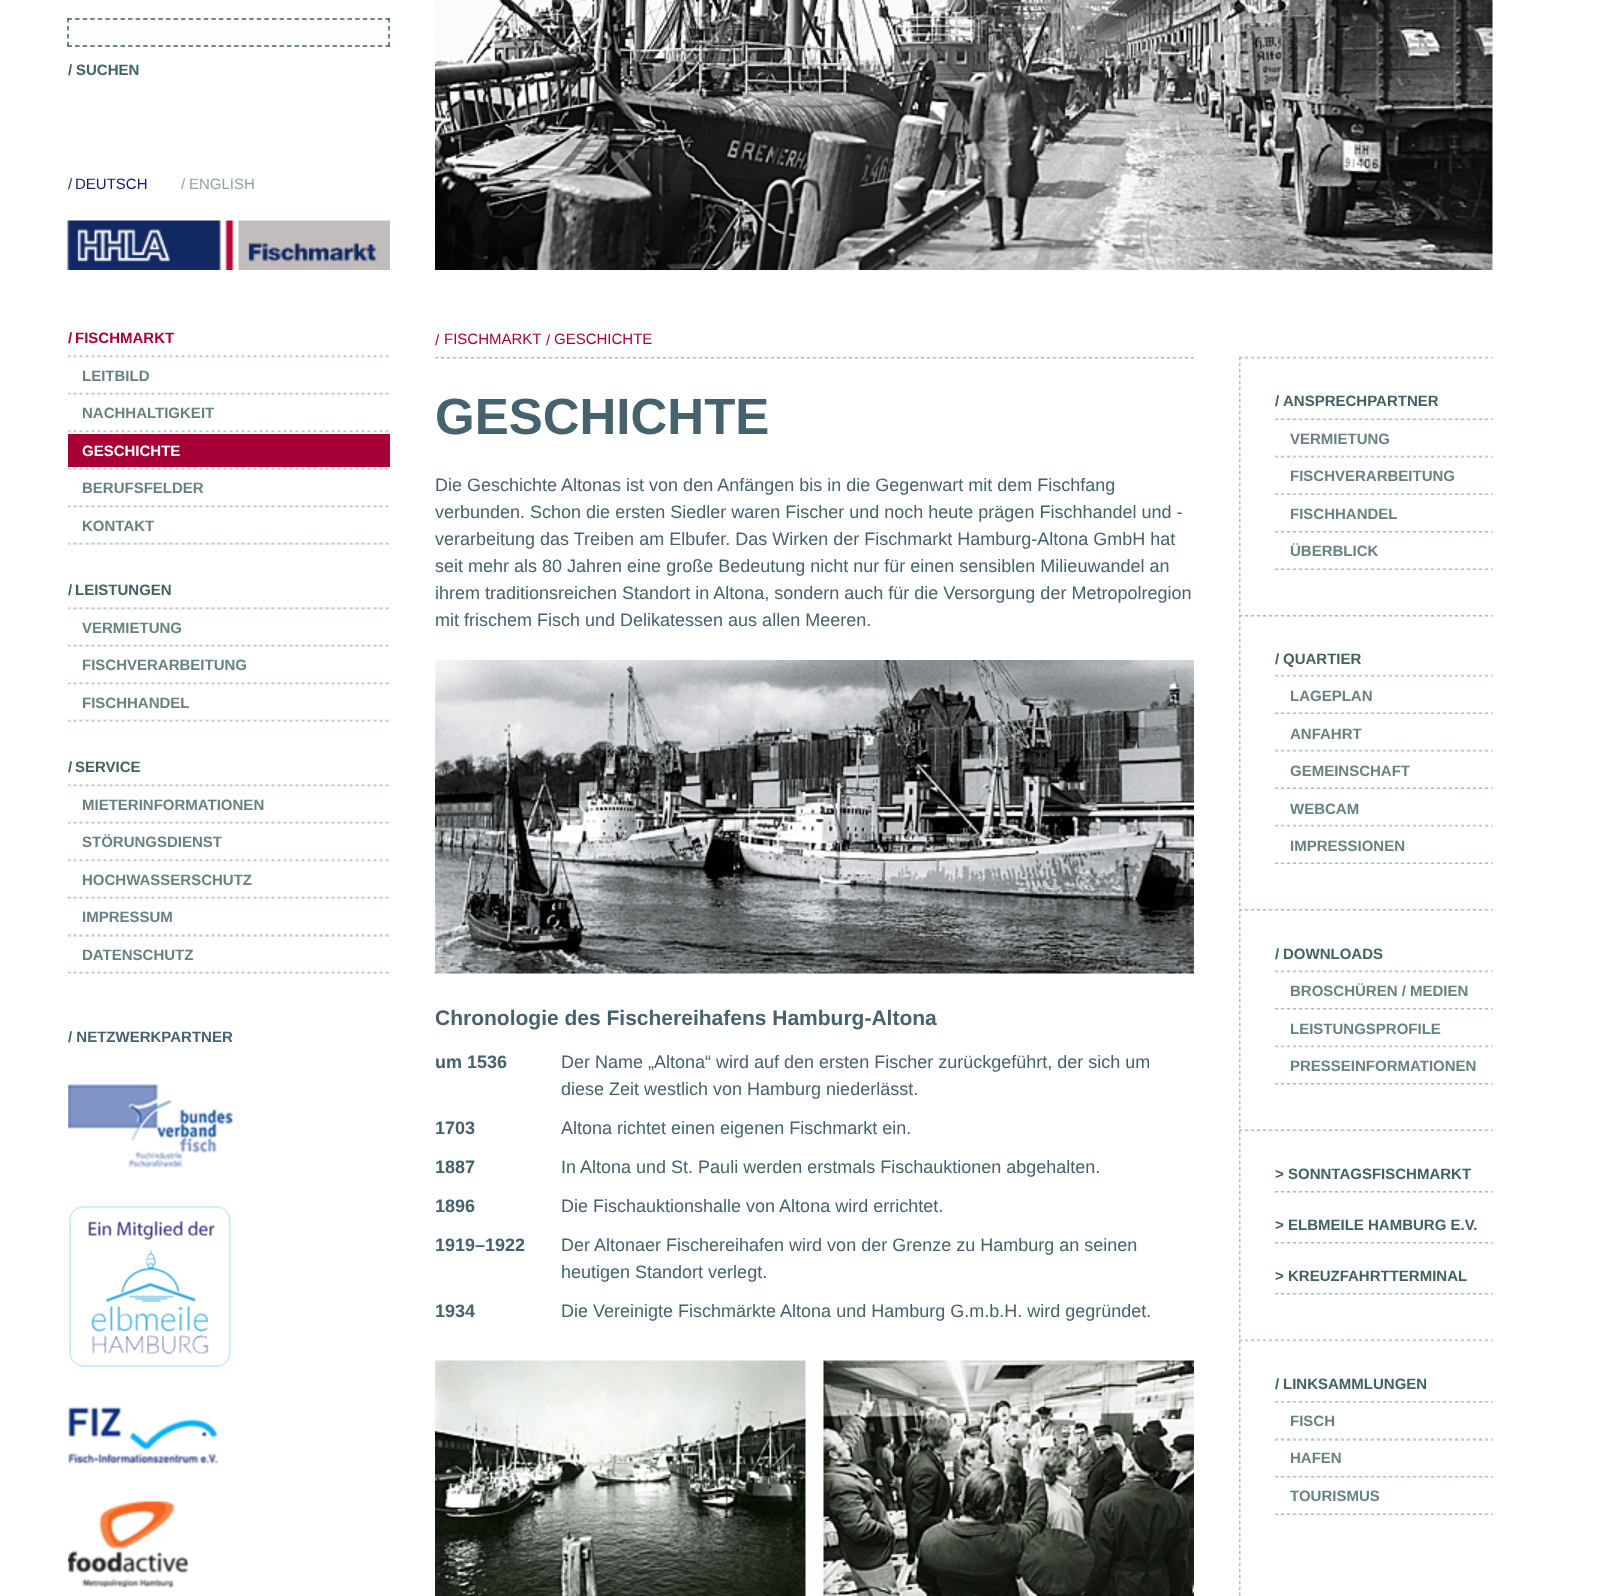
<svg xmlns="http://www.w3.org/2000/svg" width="1624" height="1596">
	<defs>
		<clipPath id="clip1"><rect x="68" y="173" width="187" height="24" /></clipPath>
	</defs>
	<rect width="100%" height="100%" fill="#FFFFFF" />
	<path d="M67.5 19H390" fill="none" stroke="#426163" stroke-width="1.5" stroke-dasharray="4.5 3.07" />
	<path d="M389 18V46.5" fill="none" stroke="#426163" stroke-width="1.5" stroke-dasharray="4.5 3.5" />
	<path d="M67.5 46H390" fill="none" stroke="#426163" stroke-width="1.5" stroke-dasharray="4.5 3.07" />
	<path d="M68 18V46.5" fill="none" stroke="#426163" stroke-width="1.5" stroke-dasharray="4.5 3.5" />
	<g font-family="Liberation Sans" font-size="15" font-weight="700" fill="#426163">
		<text x="68" y="75">/</text>
		<text x="76" y="75">SUCHEN</text>
	</g>
	<g clip-path="url(#clip1)">
		<text x="68" y="189" font-family="Liberation Sans" font-size="15" fill="#0D236A">/</text>
	</g>
	<text x="75" y="189" font-family="Liberation Sans" font-size="15" fill="#0D236A">DEUTSCH</text>
	<g font-family="Liberation Sans" font-size="15" fill="#90A1A7">
		<text x="181" y="189">/</text>
		<text x="189" y="189">ENGLISH</text>
	</g>
	<image x="67" y="220" width="323" height="50" href="assets/img1.png" />
	<image x="435" y="0" width="1058" height="270" href="assets/img2.png" />
	<image x="68" y="355" width="322" height="3" href="assets/img3.png" />
	<g font-family="Liberation Sans" font-size="15" font-weight="700" fill="#A70036">
		<text x="68" y="343">/</text>
		<text x="75" y="343">FISCHMARKT</text>
	</g>
	<image x="68" y="392" width="322" height="3" href="assets/img4.png" />
	<text x="82" y="381" font-family="Liberation Sans" font-size="15" font-weight="700" fill="#688182">LEITBILD</text>
	<image x="68" y="430" width="322" height="3" href="assets/img3.png" />
	<text x="82" y="418" font-family="Liberation Sans" font-size="15" font-weight="700" fill="#688182">NACHHALTIGKEIT</text>
	<image x="68" y="467" width="322" height="3" href="assets/img4.png" />
	<rect x="68" y="434" width="322" height="33" fill="#A70036" />
	<text x="82" y="456" font-family="Liberation Sans" font-size="15" font-weight="700" fill="#FFFFFF">GESCHICHTE</text>
	<image x="68" y="505" width="322" height="3" href="assets/img3.png" />
	<text x="82" y="493" font-family="Liberation Sans" font-size="15" font-weight="700" fill="#688182">BERUFSFELDER</text>
	<image x="68" y="542" width="322" height="3" href="assets/img5.png" />
	<text x="82" y="531" font-family="Liberation Sans" font-size="15" font-weight="700" fill="#688182">KONTAKT</text>
	<image x="68" y="607" width="322" height="3" href="assets/img3.png" />
	<g font-family="Liberation Sans" font-size="15" font-weight="700" fill="#426163">
		<text x="68" y="595">/</text>
		<text x="75" y="595">LEISTUNGEN</text>
	</g>
	<image x="68" y="644" width="322" height="3" href="assets/img6.png" />
	<text x="82" y="633" font-family="Liberation Sans" font-size="15" font-weight="700" fill="#688182">VERMIETUNG</text>
	<image x="68" y="682" width="322" height="3" href="assets/img7.png" />
	<text x="82" y="670" font-family="Liberation Sans" font-size="15" font-weight="700" fill="#688182">FISCHVERARBEITUNG</text>
	<image x="68" y="719" width="322" height="3" href="assets/img5.png" />
	<text x="82" y="708" font-family="Liberation Sans" font-size="15" font-weight="700" fill="#688182">FISCHHANDEL</text>
	<image x="68" y="784" width="322" height="3" href="assets/img3.png" />
	<g font-family="Liberation Sans" font-size="15" font-weight="700" fill="#426163">
		<text x="68" y="772">/</text>
		<text x="75" y="772">SERVICE</text>
	</g>
	<image x="68" y="821" width="322" height="3" href="assets/img5.png" />
	<text x="82" y="810" font-family="Liberation Sans" font-size="15" font-weight="700" fill="#688182">MIETERINFORMATIONEN</text>
	<image x="68" y="859" width="322" height="3" href="assets/img7.png" />
	<text x="82" y="847" font-family="Liberation Sans" font-size="15" font-weight="700" fill="#688182">STÖRUNGSDIENST</text>
	<image x="67" y="896" width="323" height="3" href="assets/img8.png" />
	<text x="82" y="885" font-family="Liberation Sans" font-size="15" font-weight="700" fill="#688182">HOCHWASSERSCHUTZ</text>
	<image x="68" y="934" width="322" height="3" href="assets/img9.png" />
	<text x="82" y="922" font-family="Liberation Sans" font-size="15" font-weight="700" fill="#688182">IMPRESSUM</text>
	<image x="68" y="971" width="322" height="3" href="assets/img5.png" />
	<text x="82" y="960" font-family="Liberation Sans" font-size="15" font-weight="700" fill="#688182">DATENSCHUTZ</text>
	<text x="68" y="1042" font-family="Liberation Sans" font-size="15" font-weight="700" fill="#46626D">/ NETZWERKPARTNER</text>
	<image x="68" y="1084" width="165" height="84" href="assets/img10.png" />
	<image x="69" y="1206" width="162" height="161" href="assets/img11.png" />
	<image x="68" y="1406" width="151" height="59" href="assets/img12.png" />
	<image x="68" y="1501" width="120" height="87" href="assets/img13.png" />
	<image x="435" y="357" width="759" height="2" href="assets/img14.png" />
	<g font-family="Liberation Sans" font-size="15" fill="#A70036">
		<text x="435" y="345">/</text>
		<text x="444" y="344">FISCHMARKT</text>
		<text x="546" y="345">/</text>
		<text x="554" y="344">GESCHICHTE</text>
	</g>
	<text x="435" y="434" font-family="Liberation Sans" font-size="51" font-weight="700" fill="#46626D">GESCHICHTE</text>
	<g font-family="Liberation Sans" font-size="18" fill="#46626D">
		<text x="435" y="491">Die Geschichte Altonas ist von den Anfängen bis in die Gegenwart mit dem Fischfang</text>
		<text x="435" y="518">verbunden. Schon die ersten Siedler waren Fischer und noch heute prägen Fischhandel und -</text>
		<text x="435" y="545">verarbeitung das Treiben am Elbufer. Das Wirken der Fischmarkt Hamburg-Altona GmbH hat</text>
		<text x="435" y="572">seit mehr als 80 Jahren eine große Bedeutung nicht nur für einen sensiblen Milieuwandel an</text>
		<text x="435" y="599">ihrem traditionsreichen Standort in Altona, sondern auch für die Versorgung der Metropolregion</text>
		<text x="435" y="626">mit frischem Fisch und Delikatessen aus allen Meeren.</text>
	</g>
	<image x="435" y="660" width="759" height="314" href="assets/img15.png" />
	<text x="435" y="1025" font-family="Liberation Sans" font-size="21" font-weight="700" fill="#46626D">Chronologie des Fischereihafens Hamburg-Altona</text>
	<text x="435" y="1068" font-family="Liberation Sans" font-size="18" font-weight="700" fill="#46626D">um 1536</text>
	<g font-family="Liberation Sans" font-size="18" fill="#46626D">
		<text x="561" y="1068">Der Name „Altona“ wird auf den ersten Fischer zurückgeführt, der sich um</text>
		<text x="561" y="1095">diese Zeit westlich von Hamburg niederlässt.</text>
	</g>
	<text x="435" y="1134" font-family="Liberation Sans" font-size="18" font-weight="700" fill="#46626D">1703</text>
	<text x="561" y="1134" font-family="Liberation Sans" font-size="18" fill="#46626D">Altona richtet einen eigenen Fischmarkt ein.</text>
	<text x="435" y="1173" font-family="Liberation Sans" font-size="18" font-weight="700" fill="#46626D">1887</text>
	<text x="561" y="1173" font-family="Liberation Sans" font-size="18" fill="#46626D">In Altona und St. Pauli werden erstmals Fischauktionen abgehalten.</text>
	<text x="435" y="1212" font-family="Liberation Sans" font-size="18" font-weight="700" fill="#46626D">1896</text>
	<text x="561" y="1212" font-family="Liberation Sans" font-size="18" fill="#46626D">Die Fischauktionshalle von Altona wird errichtet.</text>
	<text x="435" y="1251" font-family="Liberation Sans" font-size="18" font-weight="700" fill="#46626D">1919–1922</text>
	<g font-family="Liberation Sans" font-size="18" fill="#46626D">
		<text x="561" y="1251">Der Altonaer Fischereihafen wird von der Grenze zu Hamburg an seinen</text>
		<text x="561" y="1278">heutigen Standort verlegt.</text>
	</g>
	<text x="435" y="1317" font-family="Liberation Sans" font-size="18" font-weight="700" fill="#46626D">1934</text>
	<text x="561" y="1317" font-family="Liberation Sans" font-size="18" fill="#46626D">Die Vereinigte Fischmärkte Altona und Hamburg G.m.b.H. wird gegründet.</text>
	<image x="435" y="1360" width="371" height="236" href="assets/img16.png" />
	<image x="823" y="1360" width="371" height="236" href="assets/img17.png" />
	<image x="1239" y="356" width="2" height="1240" href="assets/img18.png" />
	<image x="1239" y="356" width="254" height="3" href="assets/img19.png" />
	<image x="1275" y="418" width="218" height="2" href="assets/img20.png" />
	<g font-family="Liberation Sans" font-size="15" font-weight="700" fill="#426163">
		<text x="1275" y="406">/</text>
		<text x="1283" y="406">ANSPRECHPARTNER</text>
	</g>
	<image x="1275" y="455" width="218" height="3" href="assets/img21.png" />
	<text x="1290" y="444" font-family="Liberation Sans" font-size="15" font-weight="700" fill="#688182">VERMIETUNG</text>
	<image x="1275" y="493" width="218" height="2" href="assets/img20.png" />
	<text x="1290" y="481" font-family="Liberation Sans" font-size="15" font-weight="700" fill="#688182">FISCHVERARBEITUNG</text>
	<image x="1275" y="531" width="218" height="2" href="assets/img22.png" />
	<text x="1290" y="519" font-family="Liberation Sans" font-size="15" font-weight="700" fill="#688182">FISCHHANDEL</text>
	<image x="1275" y="568" width="218" height="2" href="assets/img20.png" />
	<text x="1290" y="556" font-family="Liberation Sans" font-size="15" font-weight="700" fill="#688182">ÜBERBLICK</text>
	<image x="1239" y="615" width="254" height="2" href="assets/img23.png" />
	<image x="1275" y="674" width="218" height="3" href="assets/img24.png" />
	<g font-family="Liberation Sans" font-size="15" font-weight="700" fill="#426163">
		<text x="1275" y="664">/</text>
		<text x="1283" y="664">QUARTIER</text>
	</g>
	<image x="1275" y="712" width="218" height="2" href="assets/img20.png" />
	<text x="1290" y="701" font-family="Liberation Sans" font-size="15" font-weight="700" fill="#688182">LAGEPLAN</text>
	<image x="1275" y="749" width="218" height="3" href="assets/img24.png" />
	<text x="1290" y="739" font-family="Liberation Sans" font-size="15" font-weight="700" fill="#688182">ANFAHRT</text>
	<image x="1275" y="787" width="218" height="2" href="assets/img20.png" />
	<text x="1290" y="776" font-family="Liberation Sans" font-size="15" font-weight="700" fill="#688182">GEMEINSCHAFT</text>
	<image x="1275" y="824" width="218" height="3" href="assets/img24.png" />
	<text x="1290" y="814" font-family="Liberation Sans" font-size="15" font-weight="700" fill="#688182">WEBCAM</text>
	<image x="1275" y="862" width="218" height="2" href="assets/img20.png" />
	<text x="1290" y="851" font-family="Liberation Sans" font-size="15" font-weight="700" fill="#688182">IMPRESSIONEN</text>
	<image x="1239" y="909" width="254" height="2" href="assets/img25.png" />
	<image x="1275" y="970" width="218" height="3" href="assets/img26.png" />
	<g font-family="Liberation Sans" font-size="15" font-weight="700" fill="#426163">
		<text x="1275" y="959">/</text>
		<text x="1283" y="959">DOWNLOADS</text>
	</g>
	<image x="1275" y="1008" width="218" height="2" href="assets/img22.png" />
	<text x="1290" y="996" font-family="Liberation Sans" font-size="15" font-weight="700" fill="#688182">BROSCHÜREN / MEDIEN</text>
	<image x="1275" y="1045" width="218" height="3" href="assets/img26.png" />
	<text x="1290" y="1034" font-family="Liberation Sans" font-size="15" font-weight="700" fill="#688182">LEISTUNGSPROFILE</text>
	<image x="1275" y="1083" width="218" height="2" href="assets/img22.png" />
	<text x="1290" y="1071" font-family="Liberation Sans" font-size="15" font-weight="700" fill="#688182">PRESSEINFORMATIONEN</text>
	<image x="1239" y="1129" width="254" height="2" href="assets/img27.png" />
	<image x="1275" y="1191" width="218" height="2" href="assets/img22.png" />
	<g font-family="Liberation Sans" font-size="15" font-weight="700" fill="#426163">
		<text x="1275" y="1179">&gt;</text>
		<text x="1288" y="1179">SONNTAGSFISCHMARKT</text>
	</g>
	<image x="1275" y="1242" width="218" height="2" href="assets/img22.png" />
	<g font-family="Liberation Sans" font-size="15" font-weight="700" fill="#426163">
		<text x="1275" y="1230">&gt;</text>
		<text x="1288" y="1230">ELBMEILE HAMBURG E.V.</text>
	</g>
	<image x="1275" y="1293" width="218" height="2" href="assets/img22.png" />
	<g font-family="Liberation Sans" font-size="15" font-weight="700" fill="#426163">
		<text x="1275" y="1281">&gt;</text>
		<text x="1288" y="1281">KREUZFAHRTTERMINAL</text>
	</g>
	<image x="1239" y="1339" width="254" height="3" href="assets/img28.png" />
	<image x="1275" y="1401" width="218" height="2" href="assets/img22.png" />
	<g font-family="Liberation Sans" font-size="15" font-weight="700" fill="#426163">
		<text x="1275" y="1389">/</text>
		<text x="1283" y="1389">LINKSAMMLUNGEN</text>
	</g>
	<image x="1275" y="1438" width="218" height="3" href="assets/img29.png" />
	<text x="1290" y="1426" font-family="Liberation Sans" font-size="15" font-weight="700" fill="#688182">FISCH</text>
	<image x="1275" y="1476" width="218" height="2" href="assets/img22.png" />
	<text x="1290" y="1463" font-family="Liberation Sans" font-size="15" font-weight="700" fill="#688182">HAFEN</text>
	<image x="1275" y="1513" width="218" height="2" href="assets/img20.png" />
	<text x="1290" y="1501" font-family="Liberation Sans" font-size="15" font-weight="700" fill="#688182">TOURISMUS</text>
</svg>
